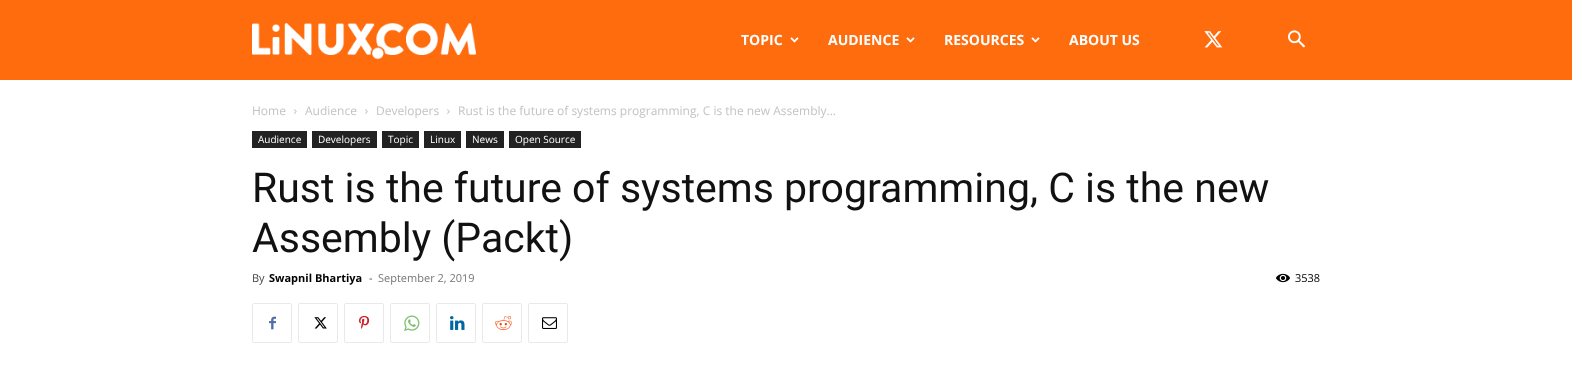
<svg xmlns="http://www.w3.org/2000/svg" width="1572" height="366">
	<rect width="100%" height="100%" fill="#FFFFFF" />
	<rect x="0" y="0" width="1572" height="80" fill="#FF6C0E" />
	<image x="252" y="23" width="224" height="37" href="assets/img1.png" />
	<text x="741" y="45" font-family="Open Sans" font-size="14" font-weight="700" fill="#FFFFFF">TOPIC</text>
	<image x="790" y="37" width="9" height="6" href="assets/img2.png" />
	<text x="828" y="45" font-family="Open Sans" font-size="14" font-weight="700" fill="#FFFFFF">AUDIENCE</text>
	<image x="906" y="37" width="9" height="6" href="assets/img2.png" />
	<text x="944" y="45" font-family="Open Sans" font-size="14" font-weight="700" fill="#FFFFFF">RESOURCES</text>
	<image x="1031" y="37" width="9" height="6" href="assets/img2.png" />
	<text x="1069" y="45" font-family="Open Sans" font-size="14" font-weight="700" fill="#FFFFFF">ABOUT US</text>
	<image x="1204" y="31" width="19" height="17" href="assets/img3.png" />
	<image x="1288" y="30" width="17" height="18" href="assets/img4.png" />
	<text x="252" y="115" font-family="Open Sans" font-size="12" fill="#C3C3C3">Home</text>
	<image x="294" y="109" width="3" height="5" href="assets/img5.png" />
	<text x="305" y="115" font-family="Open Sans" font-size="12" fill="#C3C3C3">Audience</text>
	<image x="365" y="109" width="3" height="5" href="assets/img5.png" />
	<text x="376" y="115" font-family="Open Sans" font-size="12" fill="#C3C3C3">Developers</text>
	<image x="447" y="109" width="3" height="5" href="assets/img5.png" />
	<text x="458" y="115" font-family="Open Sans" font-size="12" fill="#C3C3C3">Rust is the future of systems programming, C is the new Assembly...</text>
	<rect x="252" y="131" width="55" height="17" fill="#222222" />
	<text x="258" y="143" font-family="Open Sans" font-size="10" fill="#FFFFFF">Audience</text>
	<rect x="312" y="131" width="65" height="17" fill="#222222" />
	<text x="318" y="143" font-family="Open Sans" font-size="10" fill="#FFFFFF">Developers</text>
	<rect x="382" y="131" width="37" height="17" fill="#222222" />
	<text x="388" y="143" font-family="Open Sans" font-size="10" fill="#FFFFFF">Topic</text>
	<rect x="424" y="131" width="37" height="17" fill="#222222" />
	<text x="430" y="143" font-family="Open Sans" font-size="10" fill="#FFFFFF">Linux</text>
	<rect x="466" y="131" width="38" height="17" fill="#222222" />
	<text x="472" y="143" font-family="Open Sans" font-size="10" fill="#FFFFFF">News</text>
	<rect x="509" y="131" width="72" height="17" fill="#222222" />
	<text x="515" y="143" font-family="Open Sans" font-size="10" fill="#FFFFFF">Open Source</text>
	<g font-family="Roboto" font-size="41" fill="#111111">
		<text x="252" y="202">Rust is the future of systems programming, C is the new</text>
		<text x="252" y="252">Assembly (Packt)</text>
	</g>
	<text x="252" y="282" font-family="Open Sans" font-size="11" fill="#444444">By</text>
	<text x="269" y="282" font-family="Open Sans" font-size="11" font-weight="700" fill="#000000">Swapnil Bhartiya</text>
	<text x="369" y="282" font-family="Open Sans" font-size="11" fill="#444444">-</text>
	<text x="378" y="282" font-family="Open Sans" font-size="11" fill="#767676">September 2, 2019</text>
	<image x="1276" y="273" width="14" height="10" href="assets/img6.png" />
	<text x="1295" y="282" font-family="Open Sans" font-size="11" fill="#000000">3538</text>
	<rect x="252.5" y="303.5" width="39" height="39" rx="1.5" fill="none" stroke="#E9E9E9" />
	<image x="269" y="316" width="7" height="14" href="assets/img7.png" />
	<rect x="298.5" y="303.5" width="39" height="39" rx="1.5" fill="none" stroke="#E9E9E9" />
	<image x="314" y="317" width="13" height="12" href="assets/img8.png" />
	<rect x="344.5" y="303.5" width="39" height="39" rx="1.5" fill="none" stroke="#E9E9E9" />
	<image x="359" y="315" width="11" height="14" href="assets/img9.png" />
	<rect x="390.5" y="303.5" width="39" height="39" rx="1.5" fill="none" stroke="#E9E9E9" />
	<image x="404" y="315" width="16" height="16" href="assets/img10.png" />
	<rect x="436.5" y="303.5" width="39" height="39" rx="1.5" fill="none" stroke="#E9E9E9" />
	<image x="450" y="316" width="15" height="14" href="assets/img11.png" />
	<rect x="482.5" y="303.5" width="39" height="39" rx="1.5" fill="none" stroke="#E9E9E9" />
	<image x="495" y="316" width="17" height="14" href="assets/img12.png" />
	<rect x="528.5" y="303.5" width="39" height="39" rx="1.5" fill="none" stroke="#E9E9E9" />
	<image x="542" y="317" width="15" height="12" href="assets/img13.png" />
</svg>
